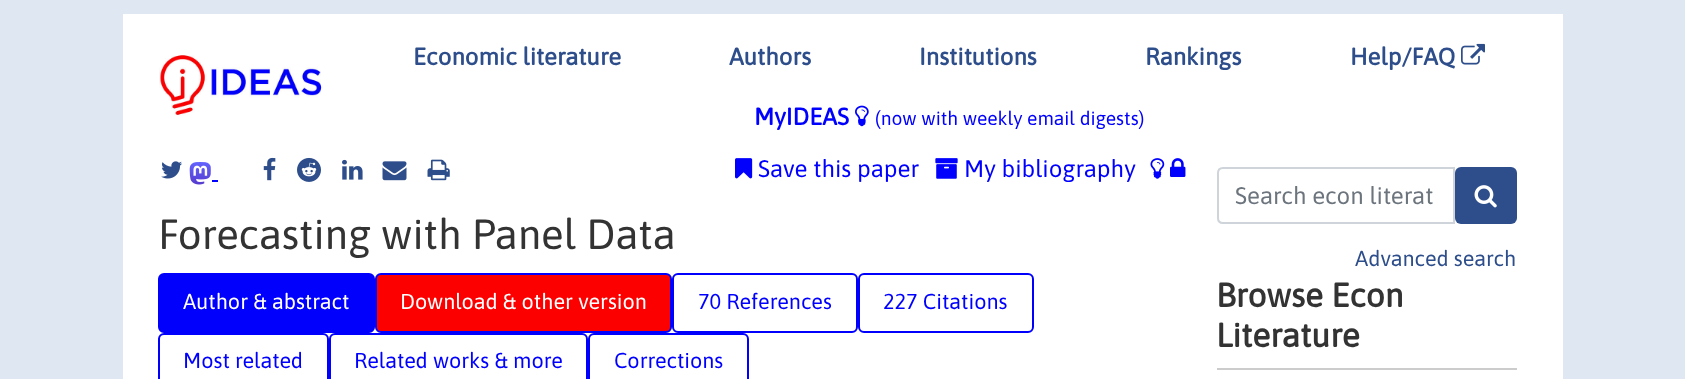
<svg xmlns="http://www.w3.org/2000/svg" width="1685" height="379">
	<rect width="100%" height="100%" fill="#DFE7F2" />
	<rect x="123" y="14" width="1440" height="365" fill="#FFFFFF" />
	<image x="159" y="55" width="164" height="61" href="assets/img1.png" />
	<g font-family="Asap" font-size="24" font-weight="700" fill="#2D4E8B">
		<text x="413" y="65">Economic literature</text>
		<text x="729" y="65">Authors</text>
		<text x="919" y="65">Institutions</text>
		<text x="1145" y="65">Rankings</text>
		<text x="1350" y="65">Help/FAQ</text>
	</g>
	<image x="1461" y="43" width="24" height="22" href="assets/img2.png" />
	<text x="754" y="125" font-family="Asap" font-size="24" font-weight="700" fill="#0000FF">MyIDEAS</text>
	<image x="855" y="105" width="14" height="22" href="assets/img3.png" />
	<text x="875" y="125" font-family="Asap" font-size="19.25" fill="#0000FF">(now with weekly email digests)</text>
	<image x="161" y="161" width="21" height="18" href="assets/img4.png" />
	<image x="189" y="162" width="22" height="23" href="assets/img5.png" />
	<rect x="212" y="180" width="6" height="2" fill="#0000FF" />
	<image x="263" y="157" width="13" height="24" href="assets/img6.png" />
	<image x="297" y="157" width="24" height="25" href="assets/img7.png" />
	<image x="342" y="159" width="21" height="21" href="assets/img8.png" />
	<image x="382" y="161" width="25" height="20" href="assets/img9.png" />
	<image x="427" y="159" width="23" height="22" href="assets/img10.png" />
	<image x="735" y="158" width="18" height="21" href="assets/img11.png" />
	<text x="758" y="177" font-family="Asap" font-size="24" fill="#0000FF">Save this paper</text>
	<image x="935" y="158" width="23" height="21" href="assets/img12.png" />
	<text x="964" y="177" font-family="Asap" font-size="24" fill="#0000FF">My bibliography</text>
	<image x="1150" y="158" width="15" height="21" href="assets/img13.png" />
	<image x="1170" y="158" width="16" height="19" href="assets/img14.png" />
	<text x="158" y="249" font-family="Asap" font-size="42" fill="#333333">Forecasting with Panel Data</text>
	<rect x="159" y="274" width="215" height="58" rx="5" fill="#0000FC" stroke="#0000FC" stroke-width="2" />
	<text x="183" y="309" font-family="Asap" font-size="21.6" fill="#FFFFFF">Author &amp; abstract</text>
	<rect x="376" y="274" width="295" height="58" rx="5" fill="#FC0000" stroke="#0000FC" stroke-width="2" />
	<text x="400" y="309" font-family="Asap" font-size="21.6" fill="#FFFFFF">Download &amp; other version</text>
	<rect x="673" y="274" width="184" height="58" rx="5" fill="none" stroke="#0000FC" stroke-width="2" />
	<text x="698" y="309" font-family="Asap" font-size="21.6" fill="#0000FF">70 References</text>
	<rect x="859" y="274" width="174" height="58" rx="5" fill="none" stroke="#0000FC" stroke-width="2" />
	<text x="883" y="309" font-family="Asap" font-size="21.6" fill="#0000FF">227 Citations</text>
	<rect x="159" y="334" width="169" height="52" rx="5" fill="none" stroke="#0000FC" stroke-width="2" />
	<text x="183" y="368" font-family="Asap" font-size="21.6" fill="#0000FF">Most related</text>
	<rect x="330" y="334" width="257" height="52" rx="5" fill="none" stroke="#0000FC" stroke-width="2" />
	<text x="354" y="368" font-family="Asap" font-size="21.6" fill="#0000FF">Related works &amp; more</text>
	<rect x="589" y="334" width="159" height="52" rx="5" fill="none" stroke="#0000FC" stroke-width="2" />
	<text x="614" y="368" font-family="Asap" font-size="21.6" fill="#0000FF">Corrections</text>
	<path d="M1223 168H1454V223H1223C1220 223 1218 221 1218 218V173C1218 170 1220 168 1223 168Z" fill="none" stroke="#CED4DA" stroke-width="2" />
	<text x="1235" y="204" font-family="Asap" font-size="24" fill="#6C757D">Search econ literat</text>
	<rect x="1455" y="167" width="62" height="57" rx="6" fill="#2D4E8B" />
	<image x="1474" y="185" width="23" height="23" href="assets/img15.png" />
	<text x="1355" y="266" font-family="Asap" font-size="21.6" fill="#2D4E8B">Advanced search</text>
	<g font-family="Asap" font-size="33.5" font-weight="700" fill="#333333">
		<text x="1216" y="307">Browse Econ</text>
		<text x="1216" y="347">Literature</text>
	</g>
	<rect x="1217" y="368" width="300" height="2" fill="#CCCCCC" />
</svg>
